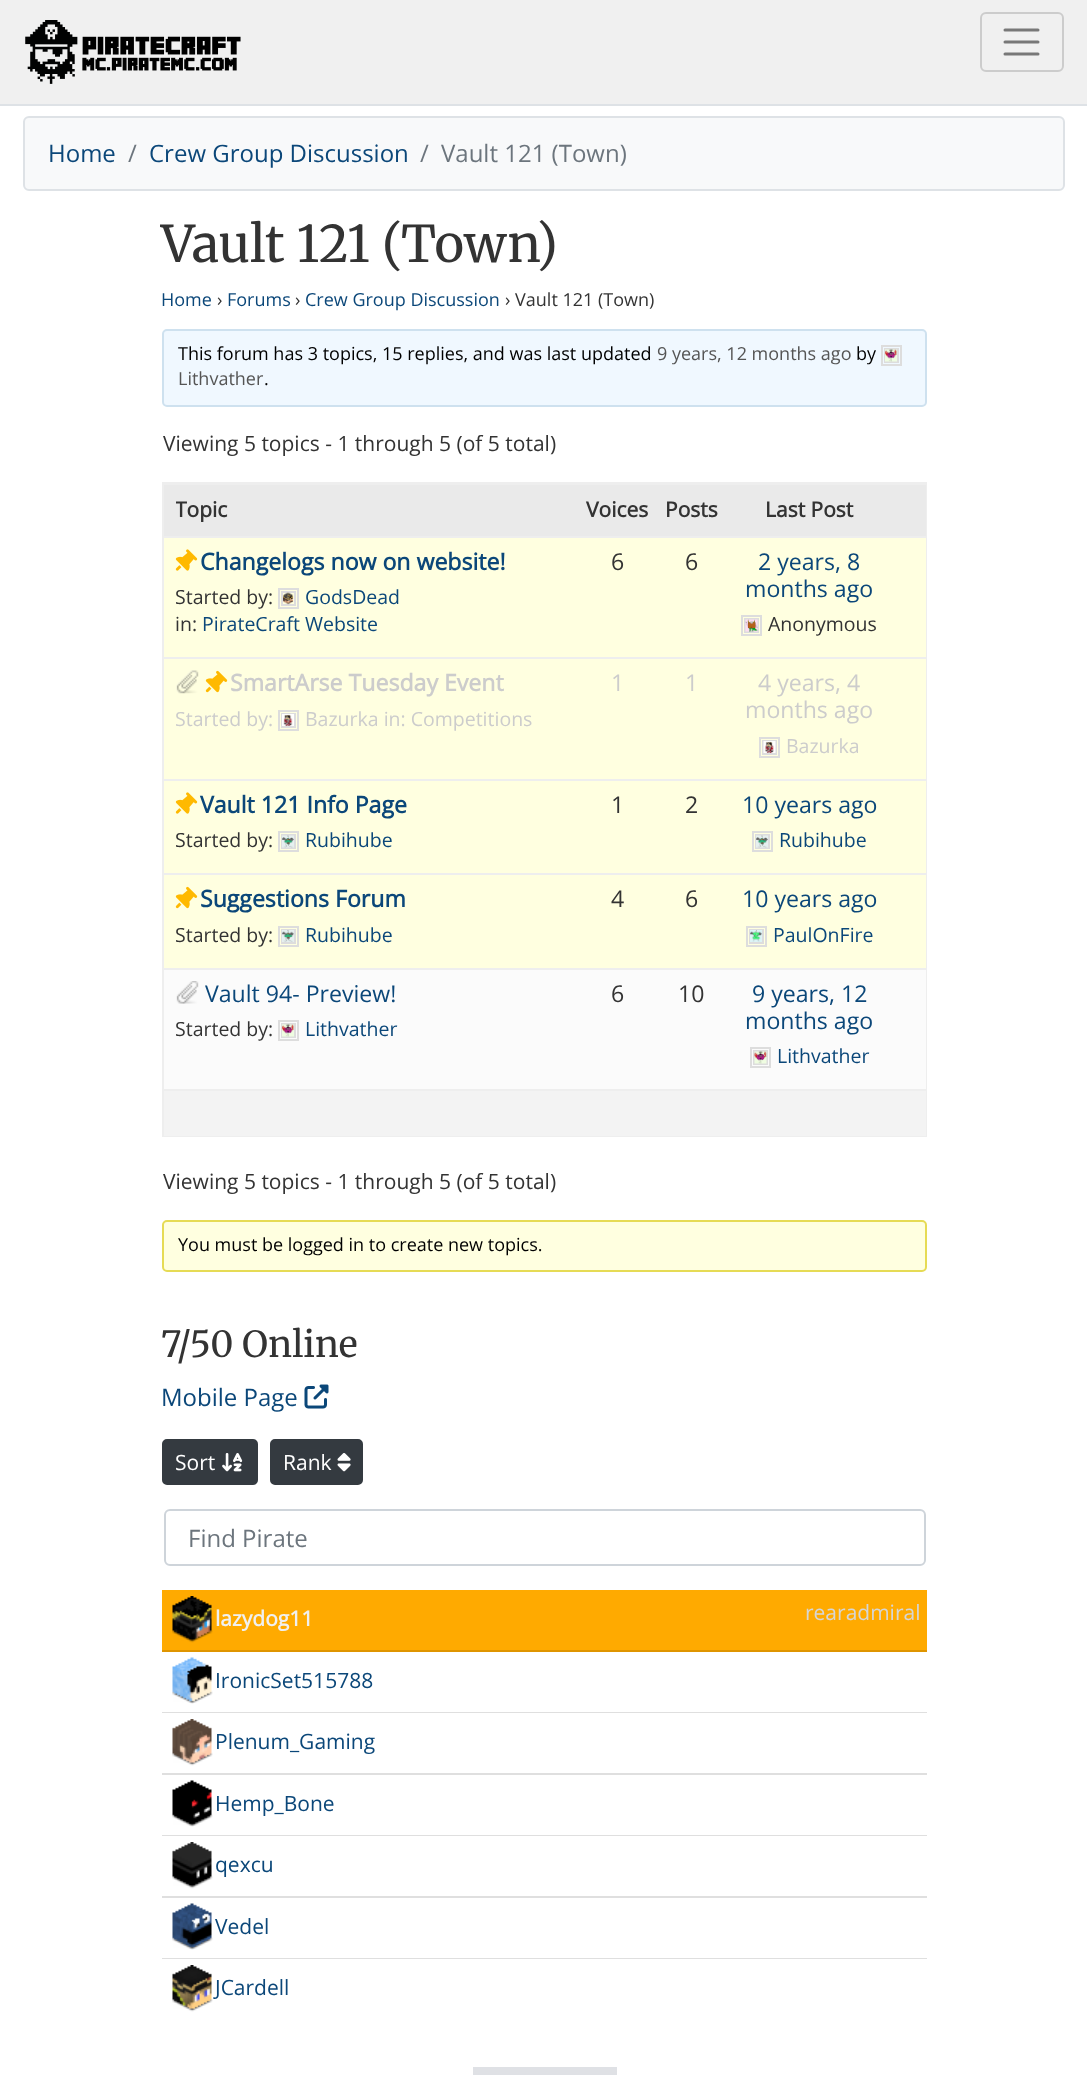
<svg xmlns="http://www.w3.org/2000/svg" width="1087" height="2099">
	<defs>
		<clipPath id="clip1"><rect x="176" y="497" width="738" height="27" /></clipPath>
	</defs>
	<rect width="100%" height="100%" fill="#FFFFFF" />
	<rect x="0" y="0" width="1087" height="104" fill="#F0F0F0" />
	<rect x="0" y="104" width="1087" height="2" fill="#DEE2E6" />
	<image x="25" y="20" width="216" height="64" href="assets/img1.png" />
	<rect x="981" y="13" width="82" height="58" rx="5" fill="none" stroke="#CCCCCC" stroke-width="2" />
	<path d="M1005 30H1038M1005 42H1038M1005 54H1038" fill="none" stroke="#787878" stroke-width="3" stroke-linecap="round" />
	<rect x="24" y="117" width="1040" height="73" rx="5" fill="#F8F9FA" stroke="#DEE2E6" stroke-width="2" />
	<text x="48" y="162" font-family="Open Sans" font-size="24" fill="#0B4779">Home</text>
	<text x="128" y="162" font-family="Open Sans" font-size="24" fill="#6C757D">/</text>
	<text x="149" y="162" font-family="Open Sans" font-size="24" fill="#0B4779">Crew Group Discussion</text>
	<g font-family="Open Sans" font-size="24" fill="#6C757D">
		<text x="420" y="162">/</text>
		<text x="441" y="162">Vault 121 (Town)</text>
	</g>
	<text x="161" y="262" font-family="Merriweather" font-size="50.5" font-weight="300" fill="#333333">Vault 121 (Town)</text>
	<text x="161" y="306" font-family="Open Sans" font-size="18" fill="#0B4779">Home</text>
	<text x="217" y="306" font-family="Open Sans" font-size="18" fill="#333333">›</text>
	<text x="227" y="306" font-family="Open Sans" font-size="18" fill="#0B4779">Forums</text>
	<text x="295" y="306" font-family="Open Sans" font-size="18" fill="#333333">›</text>
	<text x="305" y="306" font-family="Open Sans" font-size="18" fill="#0B4779">Crew Group Discussion</text>
	<text x="505" y="306" font-family="Open Sans" font-size="18" fill="#333333">› Vault 121 (Town)</text>
	<rect x="163" y="330" width="763" height="76" rx="4" fill="#F0F8FF" stroke="#CEE1EF" stroke-width="2" />
	<text x="178" y="360" font-family="Open Sans" font-size="18" fill="#000000">This forum has 3 topics, 15 replies, and was last updated</text>
	<text x="657" y="360" font-family="Open Sans" font-size="18" fill="#555555">9 years, 12 months ago</text>
	<text x="856" y="360" font-family="Open Sans" font-size="18" fill="#000000">by</text>
	<rect x="882" y="346" width="19" height="19" fill="none" stroke="#DDDDDD" stroke-width="2" />
	<rect x="885" y="349" width="13" height="13" fill="none" stroke="#DDDDDD" stroke-width="2" />
	<image x="885" y="349" width="12" height="13" href="assets/img2.png" />
	<text x="178" y="385" font-family="Open Sans" font-size="18" fill="#555555">Lithvather</text>
	<text x="264" y="385" font-family="Open Sans" font-size="18" fill="#000000">.</text>
	<text x="163" y="451" font-family="Open Sans" font-size="21" fill="#333333">Viewing 5 topics - 1 through 5 (of 5 total)</text>
	<rect x="163" y="483" width="763" height="653" fill="none" stroke="#EEEEEE" stroke-width="2" />
	<rect x="164" y="485" width="762" height="51" fill="#EAEAEA" />
	<rect x="164" y="484" width="762" height="1" fill="#EEEEEE" />
	<g clip-path="url(#clip1)">
		<text x="175" y="517" font-family="Open Sans" font-size="21" font-weight="700" fill="#333333">Topic</text>
	</g>
	<g font-family="Open Sans" font-size="21" font-weight="700" fill="#333333">
		<text x="586" y="517">Voices</text>
		<text x="665" y="517">Posts</text>
		<text x="765" y="517">Last Post</text>
	</g>
	<rect x="164" y="538" width="762" height="119" fill="#FFFFE0" />
	<rect x="164" y="536" width="762" height="2" fill="#EEEEEE" />
	<image x="175" y="549" width="23" height="22" href="assets/img3.png" />
	<text x="200" y="570" font-family="Open Sans" font-size="23.1" font-weight="700" fill="#0B4779">Changelogs now on website!</text>
	<text x="175" y="604" font-family="Open Sans" font-size="19.5" fill="#333333">Started by:</text>
	<rect x="279" y="589" width="19" height="19" fill="none" stroke="#DDDDDD" stroke-width="2" />
	<rect x="282" y="592" width="13" height="13" fill="none" stroke="#DDDDDD" stroke-width="2" />
	<image x="283" y="592" width="11" height="13" href="assets/img4.png" />
	<text x="305" y="604" font-family="Open Sans" font-size="19.5" fill="#0B4779">GodsDead</text>
	<text x="175" y="631" font-family="Open Sans" font-size="19.5" fill="#333333">in:</text>
	<text x="202" y="631" font-family="Open Sans" font-size="19.5" fill="#0B4779">PirateCraft Website</text>
	<g font-family="Open Sans" font-size="23.1" fill="#333333">
		<text x="611" y="570">6</text>
		<text x="685" y="570">6</text>
	</g>
	<g font-family="Open Sans" font-size="23.1" fill="#0B4779">
		<text x="758" y="570">2 years, 8</text>
		<text x="745" y="597">months ago</text>
	</g>
	<rect x="742" y="616" width="19" height="19" fill="none" stroke="#DDDDDD" stroke-width="2" />
	<rect x="745" y="619" width="13" height="13" fill="none" stroke="#DDDDDD" stroke-width="2" />
	<image x="745" y="619" width="13" height="13" href="assets/img5.png" />
	<text x="768" y="631" font-family="Open Sans" font-size="19.5" fill="#333333">Anonymous</text>
	<rect x="164" y="659" width="762" height="120" fill="#FFFFE0" />
	<rect x="164" y="657" width="762" height="2" fill="#EEEEEE" />
	<image x="176" y="670" width="23" height="24" href="assets/img6.png" />
	<image x="205" y="670" width="23" height="23" href="assets/img7.png" />
	<text x="230" y="691" font-family="Open Sans" font-size="23.1" font-weight="700" fill="#CCCCCC">SmartArse Tuesday Event</text>
	<text x="175" y="726" font-family="Open Sans" font-size="19.5" fill="#CCCCCC">Started by:</text>
	<rect x="279" y="711" width="19" height="19" fill="none" stroke="#DDDDDD" stroke-width="2" />
	<rect x="282" y="714" width="13" height="13" fill="none" stroke="#DDDDDD" stroke-width="2" />
	<image x="282" y="714" width="12" height="12" href="assets/img8.png" />
	<text x="305" y="726" font-family="Open Sans" font-size="19.5" fill="#CCCCCC">Bazurka in: Competitions</text>
	<g font-family="Open Sans" font-size="23.1" fill="#CCCCCC">
		<text x="611" y="691">1</text>
		<text x="685" y="691">1</text>
		<text x="758" y="691">4 years, 4</text>
		<text x="745" y="718">months ago</text>
	</g>
	<rect x="760" y="738" width="19" height="19" fill="none" stroke="#DDDDDD" stroke-width="2" />
	<rect x="763" y="741" width="13" height="13" fill="none" stroke="#DDDDDD" stroke-width="2" />
	<image x="763" y="741" width="13" height="12" href="assets/img9.png" />
	<text x="786" y="753" font-family="Open Sans" font-size="19.5" fill="#CCCCCC">Bazurka</text>
	<rect x="164" y="781" width="762" height="92" fill="#FFFFE0" />
	<rect x="164" y="779" width="762" height="2" fill="#EEEEEE" />
	<image x="175" y="792" width="23" height="22" href="assets/img3.png" />
	<text x="200" y="813" font-family="Open Sans" font-size="23.1" font-weight="700" fill="#0B4779">Vault 121 Info Page</text>
	<text x="175" y="847" font-family="Open Sans" font-size="19.5" fill="#333333">Started by:</text>
	<rect x="279" y="832" width="19" height="19" fill="none" stroke="#DDDDDD" stroke-width="2" />
	<rect x="282" y="835" width="13" height="13" fill="none" stroke="#DDDDDD" stroke-width="2" />
	<image x="282" y="835" width="12" height="13" href="assets/img10.png" />
	<text x="305" y="847" font-family="Open Sans" font-size="19.5" fill="#0B4779">Rubihube</text>
	<g font-family="Open Sans" font-size="23.1" fill="#333333">
		<text x="611" y="813">1</text>
		<text x="685" y="813">2</text>
	</g>
	<text x="742" y="813" font-family="Open Sans" font-size="23.1" fill="#0B4779">10 years ago</text>
	<rect x="753" y="832" width="19" height="19" fill="none" stroke="#DDDDDD" stroke-width="2" />
	<rect x="756" y="835" width="13" height="13" fill="none" stroke="#DDDDDD" stroke-width="2" />
	<image x="756" y="835" width="12" height="13" href="assets/img10.png" />
	<text x="779" y="847" font-family="Open Sans" font-size="19.5" fill="#0B4779">Rubihube</text>
	<rect x="164" y="875" width="762" height="93" fill="#FFFFE0" />
	<rect x="164" y="873" width="762" height="2" fill="#EEEEEE" />
	<image x="175" y="886" width="23" height="23" href="assets/img7.png" />
	<text x="200" y="907" font-family="Open Sans" font-size="23.1" font-weight="700" fill="#0B4779">Suggestions Forum</text>
	<text x="175" y="942" font-family="Open Sans" font-size="19.5" fill="#333333">Started by:</text>
	<rect x="279" y="927" width="19" height="19" fill="none" stroke="#DDDDDD" stroke-width="2" />
	<rect x="282" y="930" width="13" height="13" fill="none" stroke="#DDDDDD" stroke-width="2" />
	<image x="282" y="930" width="12" height="12" href="assets/img11.png" />
	<text x="305" y="942" font-family="Open Sans" font-size="19.5" fill="#0B4779">Rubihube</text>
	<g font-family="Open Sans" font-size="23.1" fill="#333333">
		<text x="611" y="907">4</text>
		<text x="685" y="907">6</text>
	</g>
	<text x="742" y="907" font-family="Open Sans" font-size="23.1" fill="#0B4779">10 years ago</text>
	<rect x="747" y="927" width="19" height="19" fill="none" stroke="#DDDDDD" stroke-width="2" />
	<rect x="750" y="930" width="13" height="13" fill="none" stroke="#DDDDDD" stroke-width="2" />
	<image x="750" y="930" width="12" height="12" href="assets/img12.png" />
	<text x="773" y="942" font-family="Open Sans" font-size="19.5" fill="#0B4779">PaulOnFire</text>
	<rect x="164" y="970" width="762" height="119" fill="#FBFBFB" />
	<rect x="164" y="968" width="762" height="2" fill="#EEEEEE" />
	<image x="176" y="981" width="23" height="23" href="assets/img13.png" />
	<text x="205" y="1002" font-family="Open Sans" font-size="23.1" fill="#0B4779">Vault 94- Preview!</text>
	<text x="175" y="1036" font-family="Open Sans" font-size="19.5" fill="#333333">Started by:</text>
	<rect x="279" y="1021" width="19" height="19" fill="none" stroke="#DDDDDD" stroke-width="2" />
	<rect x="282" y="1024" width="13" height="13" fill="none" stroke="#DDDDDD" stroke-width="2" />
	<image x="282" y="1024" width="12" height="13" href="assets/img14.png" />
	<text x="305" y="1036" font-family="Open Sans" font-size="19.5" fill="#0B4779">Lithvather</text>
	<g font-family="Open Sans" font-size="23.1" fill="#333333">
		<text x="611" y="1002">6</text>
		<text x="678" y="1002">10</text>
	</g>
	<g font-family="Open Sans" font-size="23.1" fill="#0B4779">
		<text x="752" y="1002">9 years, 12</text>
		<text x="745" y="1029">months ago</text>
	</g>
	<rect x="751" y="1048" width="19" height="19" fill="none" stroke="#DDDDDD" stroke-width="2" />
	<rect x="754" y="1051" width="13" height="13" fill="none" stroke="#DDDDDD" stroke-width="2" />
	<image x="754" y="1051" width="13" height="13" href="assets/img15.png" />
	<text x="777" y="1063" font-family="Open Sans" font-size="19.5" fill="#0B4779">Lithvather</text>
	<rect x="164" y="1091" width="762" height="45" fill="#F3F3F3" />
	<rect x="164" y="1089" width="762" height="2" fill="#EEEEEE" />
	<text x="163" y="1189" font-family="Open Sans" font-size="21" fill="#333333">Viewing 5 topics - 1 through 5 (of 5 total)</text>
	<rect x="163" y="1221" width="763" height="50" rx="4" fill="#FFFFE0" stroke="#E6DB55" stroke-width="2" />
	<text x="178" y="1251" font-family="Open Sans" font-size="18" fill="#000000">You must be logged in to create new topics.</text>
	<g font-family="Merriweather" font-size="36" font-weight="300" fill="#333333">
		<text x="161" y="1357">7</text>
		<text x="177" y="1357">/50 Online</text>
	</g>
	<text x="161" y="1406" font-family="Open Sans" font-size="24" fill="#0B4779">Mobile Page</text>
	<image x="304" y="1384" width="25" height="25" href="assets/img16.png" />
	<rect x="163" y="1440" width="94" height="44" rx="4" fill="#343A40" stroke="#343A40" stroke-width="2" />
	<text x="175" y="1470" font-family="Open Sans" font-size="21" fill="#FFFFFF">Sort</text>
	<image x="222" y="1453" width="21" height="19" href="assets/img17.png" />
	<rect x="271" y="1440" width="91" height="44" rx="4" fill="#343A40" stroke="#343A40" stroke-width="2" />
	<text x="283" y="1470" font-family="Open Sans" font-size="21" fill="#FFFFFF">Rank</text>
	<image x="337" y="1453" width="14" height="19" href="assets/img18.png" />
	<rect x="165" y="1510" width="760" height="55" rx="5" fill="none" stroke="#CED4DA" stroke-width="2" />
	<text x="188" y="1547" font-family="Open Sans" font-size="24" fill="#6C757D">Find Pirate</text>
	<rect x="162" y="1590" width="765" height="60" fill="#FFAA00" />
	<rect x="162" y="1650" width="765" height="2" fill="#DF9500" />
	<image x="172" y="1596" width="41" height="47" href="assets/img19.png" />
	<text x="215" y="1626" font-family="Open Sans" font-size="21" font-weight="700" fill="#F0F0F0">lazydog11</text>
	<text x="805" y="1620" font-family="Open Sans" font-size="21" fill="#D6D6D6">rearadmiral</text>
	<rect x="162" y="1712" width="765" height="1" fill="#DFDFDF" />
	<image x="172" y="1657" width="41" height="47" href="assets/img20.png" />
	<text x="215" y="1688" font-family="Open Sans" font-size="21" fill="#0B4779">IronicSet515788</text>
	<rect x="162" y="1773" width="765" height="2" fill="#DFDFDF" />
	<image x="172" y="1719" width="41" height="47" href="assets/img21.png" />
	<text x="215" y="1749" font-family="Open Sans" font-size="21" fill="#0B4779">Plenum_Gaming</text>
	<rect x="162" y="1835" width="765" height="1" fill="#DFDFDF" />
	<image x="172" y="1780" width="41" height="47" href="assets/img22.png" />
	<text x="215" y="1811" font-family="Open Sans" font-size="21" fill="#0B4779">Hemp_Bone</text>
	<rect x="162" y="1896" width="765" height="2" fill="#DFDFDF" />
	<image x="172" y="1842" width="41" height="47" href="assets/img23.png" />
	<text x="215" y="1872" font-family="Open Sans" font-size="21" fill="#0B4779">qexcu</text>
	<rect x="162" y="1958" width="765" height="1" fill="#DFDFDF" />
	<image x="172" y="1903" width="41" height="47" href="assets/img24.png" />
	<text x="215" y="1934" font-family="Open Sans" font-size="21" fill="#0B4779">Vedel</text>
	<image x="172" y="1965" width="41" height="47" href="assets/img25.png" />
	<text x="215" y="1995" font-family="Open Sans" font-size="21" fill="#0B4779">JCardell</text>
	<rect x="473" y="2067" width="144" height="8" fill="#DFE1E5" />
</svg>
